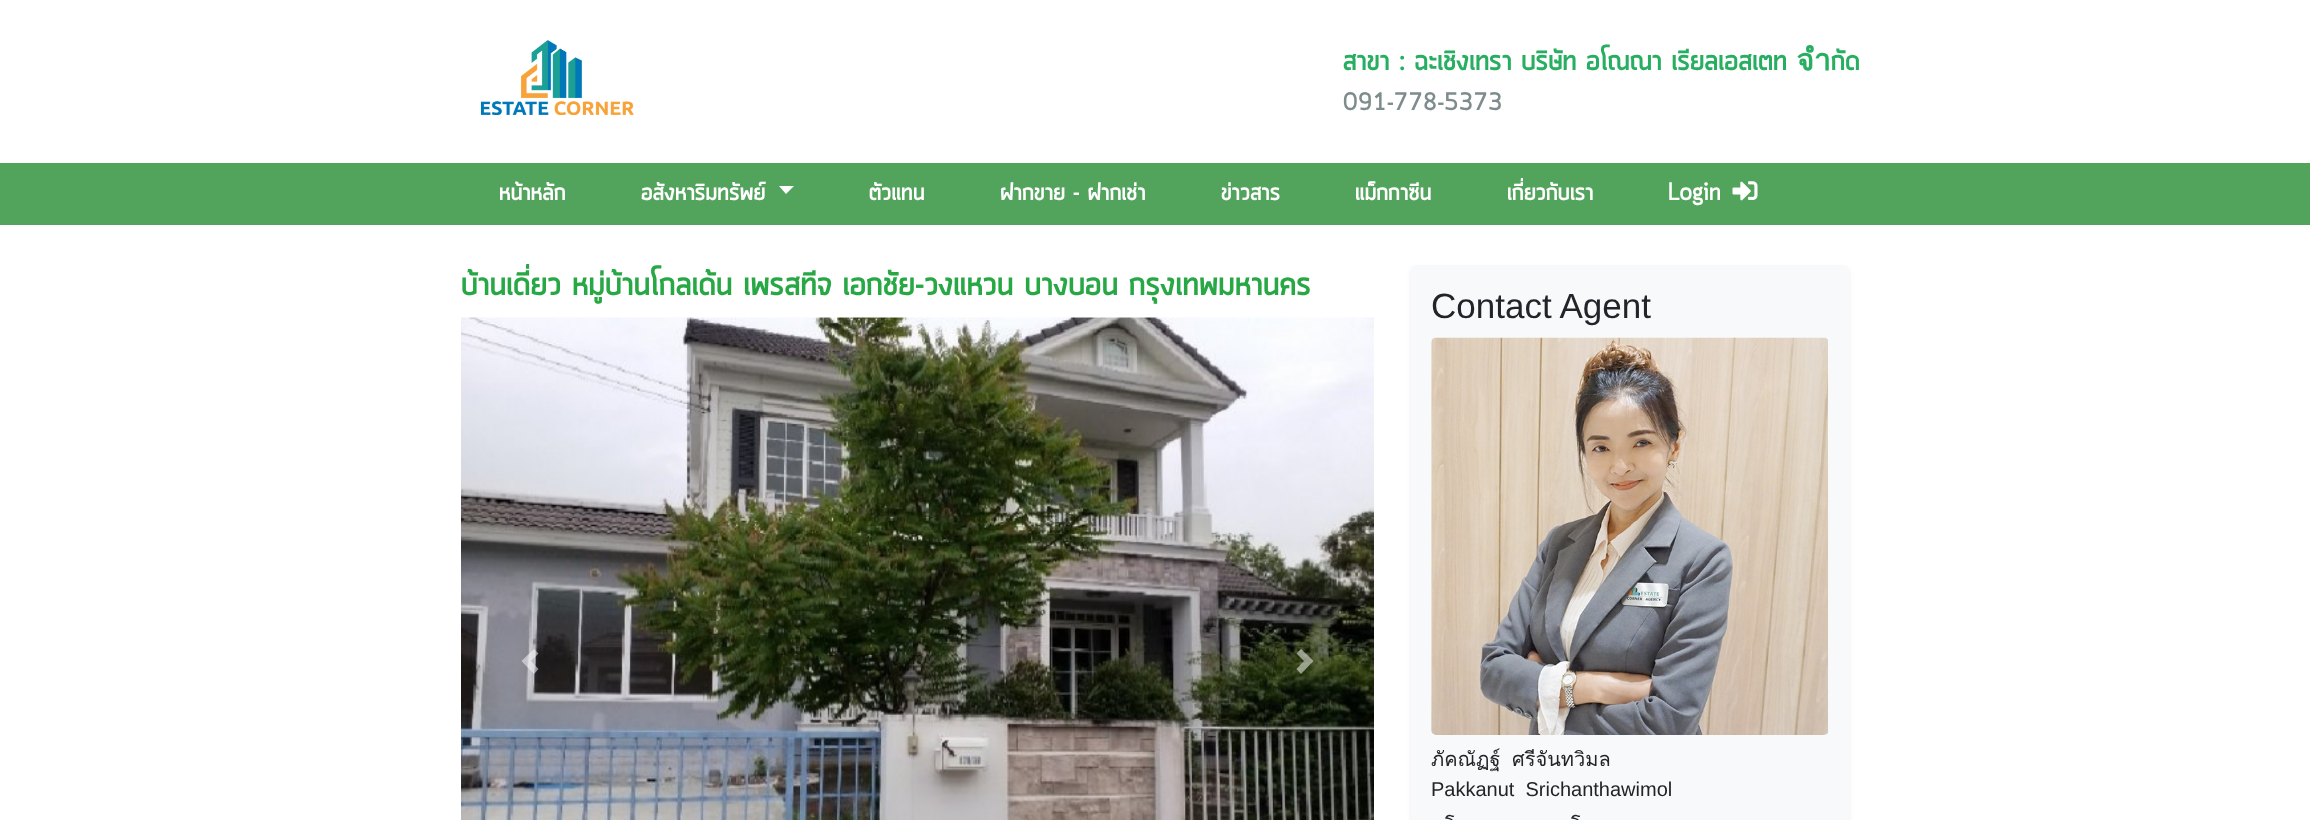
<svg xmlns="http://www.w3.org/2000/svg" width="2310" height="820">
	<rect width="100%" height="100%" fill="#FFFFFF" />
	<image x="480" y="40" width="154" height="75" href="assets/img1.png" />
	<text x="1343" y="70" font-family="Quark" font-size="30" font-weight="700" fill="#27AE60">สาขา : ฉะเชิงเทรา บริษัท อโณณา เรียลเอสเตท จำกัด</text>
	<text x="1343" y="110" font-family="Quark" font-size="25" font-weight="700" fill="#7F8C8D">091-778-5373</text>
	<rect x="0" y="163" width="2310" height="62" fill="#52A45D" />
	<g font-family="Quark" font-size="25" font-weight="700" fill="#FFFFFF">
		<text x="499" y="200">หน้าหลัก</text>
		<text x="641" y="200">อสังหาริมทรัพย์</text>
	</g>
	<path d="M779 186H794L786 194Z" fill="#FFFFFF" />
	<g font-family="Quark" font-size="25" font-weight="700" fill="#FFFFFF">
		<text x="869" y="200">ตัวแทน</text>
		<text x="1000" y="200">ฝากขาย - ฝากเช่า</text>
		<text x="1221" y="200">ข่าวสาร</text>
		<text x="1355" y="200">แม็กกาซีน</text>
		<text x="1507" y="200">เกี่ยวกับเรา</text>
		<text x="1668" y="200">Login</text>
	</g>
	<image x="1732" y="181" width="26" height="20" href="assets/img2.png" />
	<text x="461" y="295" font-family="Quark" font-size="35" font-weight="700" fill="#28A745">บ้านเดี่ยว หมู่บ้านโกลเด้น เพรสทีจ เอกชัย-วงแหวน บางบอน กรุงเทพมหานคร</text>
	<image x="461" y="317" width="913" height="503" href="assets/img3.png" />
	<path d="M534 649L521.5 661L534 674L538.5 669L531 661L538.5 653.5Z" fill="#FFFFFF" fill-opacity="0.5" />
	<path d="M1301 649L1296.5 653.5L1304 661L1296.5 669L1301 674L1313.5 661Z" fill="#FFFFFF" fill-opacity="0.5" />
	<rect x="1411" y="268" width="438" height="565" rx="5" fill="#000000" fill-opacity="0.07" filter="blur(2.5px)" />
	<rect x="1411" y="265" width="438" height="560" rx="5" fill="#F8F9FA" />
	<text x="1431" y="318" font-family="Liberation Sans" font-size="35" fill="#212529">Contact Agent</text>
	<image x="1431" y="337" width="398" height="398" href="assets/img4.png" />
	<g font-family="Loma" font-size="20" fill="#212529">
		<text x="1431" y="766">ภัคณัฏฐ์</text>
		<text x="1512" y="766">ศรีจันทวิมล</text>
	</g>
	<text x="1431" y="796" font-family="Liberation Sans" font-size="20" fill="#212529" xml:space="preserve">Pakkanut  Srichanthawimol</text>
	<g font-family="Loma" font-size="20" fill="#212529">
		<text x="1444" y="826" word-spacing="-1">ร</text>
		<text x="1570" y="826" word-spacing="-1">ร</text>
	</g>
</svg>
